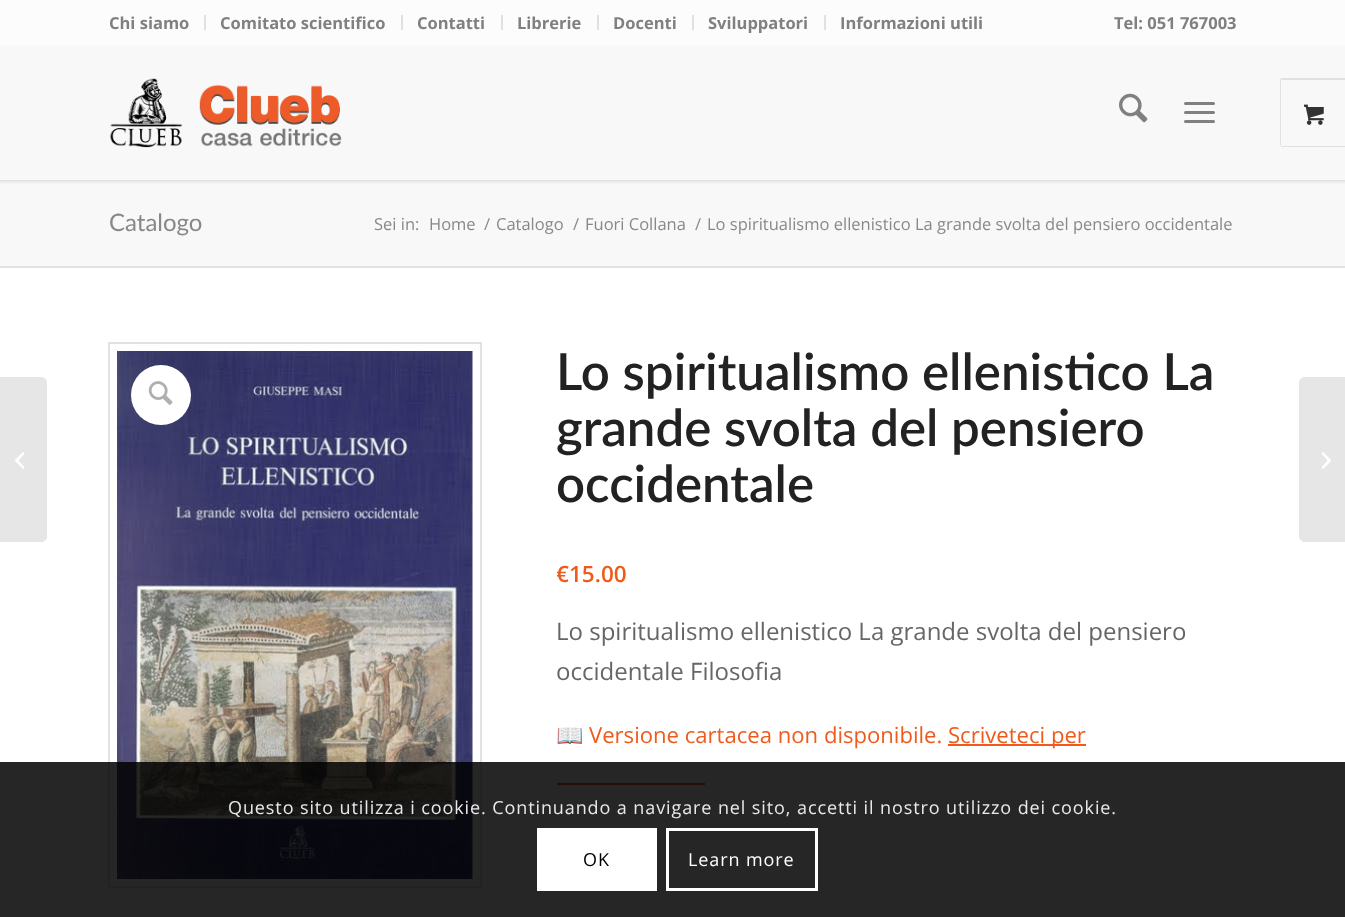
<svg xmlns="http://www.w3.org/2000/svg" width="1345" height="917">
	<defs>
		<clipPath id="clip1"><rect x="557" y="342" width="681" height="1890" /></clipPath>
	</defs>
	<rect width="100%" height="100%" fill="#F8F8F8" />
	<rect x="-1" y="-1" width="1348" height="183" fill="#000000" fill-opacity="0.1" filter="blur(1.5px)" />
	<rect x="0" y="0" width="1345" height="45" fill="#FCFCFC" />
	<rect x="204" y="15" width="2" height="15" fill="#E1E1E1" />
	<text x="109" y="29" font-family="Open Sans" font-size="16.5" font-weight="700" fill="#808080">Chi siamo</text>
	<rect x="401" y="15" width="2" height="15" fill="#E1E1E1" />
	<text x="220" y="29" font-family="Open Sans" font-size="16.5" font-weight="700" fill="#808080">Comitato scientifico</text>
	<rect x="501" y="15" width="2" height="15" fill="#E1E1E1" />
	<text x="417" y="29" font-family="Open Sans" font-size="16.5" font-weight="700" fill="#808080">Contatti</text>
	<rect x="597" y="15" width="2" height="15" fill="#E1E1E1" />
	<text x="517" y="29" font-family="Open Sans" font-size="16.5" font-weight="700" fill="#808080">Librerie</text>
	<rect x="692" y="15" width="2" height="15" fill="#E1E1E1" />
	<text x="613" y="29" font-family="Open Sans" font-size="16.5" font-weight="700" fill="#808080">Docenti</text>
	<rect x="824" y="15" width="2" height="15" fill="#E1E1E1" />
	<g font-family="Open Sans" font-size="16.5" font-weight="700" fill="#808080">
		<text x="708" y="29">Sviluppatori</text>
		<text x="840" y="29">Informazioni utili</text>
		<text x="1114" y="29">Tel: 051 767003</text>
	</g>
	<rect x="0" y="45" width="1345" height="135" fill="#F8F8F8" />
	<image x="110" y="78" width="232" height="70" href="assets/img1.png" />
	<image x="1119" y="93" width="29" height="30" href="assets/img2.png" />
	<rect x="1184" y="111" width="31" height="3" rx="1.5" fill="#808080" />
	<rect x="1184" y="102" width="31" height="3" rx="1.5" fill="#808080" />
	<rect x="1184" y="120" width="31" height="3" rx="1.5" fill="#808080" />
	<rect x="1281" y="79" width="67" height="67" rx="2" fill="none" stroke="#E1E1E1" stroke-width="2" />
	<rect x="1281" y="80" width="64" height="66" fill="#F8F8F8" />
	<image x="1304" y="104" width="20" height="21" href="assets/img3.png" />
	<rect x="0" y="268" width="1345" height="649" fill="#FFFFFF" />
	<path d="M0 377H41C44.5 377 47 379.5 47 383V536C47 539.5 44.5 542 41 542H0Z" fill="#E6E6E6" />
	<image x="15" y="452" width="9" height="17" href="assets/img4.png" />
	<text x="109" y="231" font-family="Lato" font-size="24" fill="#888888">Catalogo</text>
	<g font-family="Open Sans" font-size="16.5" fill="#888888">
		<text x="374" y="230">Sei in:</text>
		<text x="429" y="230">Home</text>
		<text x="484" y="230">/</text>
		<text x="496" y="230">Catalogo</text>
		<text x="573" y="230">/</text>
		<text x="585" y="230">Fuori Collana</text>
		<text x="695" y="230">/</text>
		<text x="707" y="230">Lo spiritualismo ellenistico La grande svolta del pensiero occidentale</text>
	</g>
	<rect x="0" y="266" width="1345" height="2" fill="#E1E1E1" />
	<rect x="109" y="343" width="372" height="544" fill="none" stroke="#E1E1E1" stroke-width="2" />
	<image x="117" y="351" width="356" height="528" href="assets/img5.png" />
	<circle cx="161" cy="395" r="30" fill="#FFFFFF" />
	<image x="148" y="381" width="25" height="24" href="assets/img6.png" />
	<g font-family="Lato" font-size="51" font-weight="600" fill="#222222">
		<text x="556" y="390">Lo spiritualismo ellenistico La</text>
		<text x="556" y="446">grande svolta del pensiero</text>
		<text x="556" y="502">occidentale</text>
	</g>
	<g clip-path="url(#clip1)">
		<text x="556" y="582" font-family="Open Sans" font-size="22.5" font-weight="600" fill="#F05A1A">€</text>
	</g>
	<text x="569" y="582" font-family="Open Sans" font-size="22.5" font-weight="600" fill="#F05A1A">15.00</text>
	<g font-family="Open Sans" font-size="24" fill="#666666">
		<text x="556" y="640">Lo spiritualismo ellenistico La grande svolta del pensiero</text>
		<text x="556" y="680">occidentale Filosofia</text>
	</g>
	<g clip-path="url(#clip1)">
		<text x="556" y="743" font-family="Noto Color Emoji" font-size="22.1" fill="#F05A1A">📖</text>
	</g>
	<text x="589" y="743" font-family="Open Sans" font-size="22.1" fill="#F05A1A">Versione cartacea non disponibile.</text>
	<rect x="948" y="744" width="138" height="2" fill="#F05A1A" />
	<text x="948" y="743" font-family="Open Sans" font-size="22.1" fill="#F05A1A">Scriveteci per</text>
	<rect x="557" y="783" width="148" height="2" fill="#F05A1A" />
	<path d="M1305 377H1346V542H1305C1301.5 542 1299 539.5 1299 536V383C1299 379.5 1301.5 377 1305 377Z" fill="#E6E6E6" />
	<image x="1322" y="452" width="9" height="17" href="assets/img7.png" />
	<rect x="0" y="762" width="1345" height="155" fill="#000000" fill-opacity="0.85" />
	<text x="228" y="814" font-family="Open Sans" font-size="18" letter-spacing="0.9" fill="#E9E9E9">Questo sito utilizza i cookie. Continuando a navigare nel sito, accetti il nostro utilizzo dei cookie.</text>
	<rect x="537" y="828" width="120" height="63" fill="#FFFFFF" />
	<text x="583" y="866" font-family="Open Sans" font-size="18" letter-spacing="0.9" fill="#000000">OK</text>
	<rect x="667.5" y="829.5" width="149" height="60" fill="none" stroke="#FFFFFF" stroke-width="3" />
	<text x="688" y="866" font-family="Open Sans" font-size="18" letter-spacing="0.9" fill="#FFFFFF">Learn more</text>
</svg>
